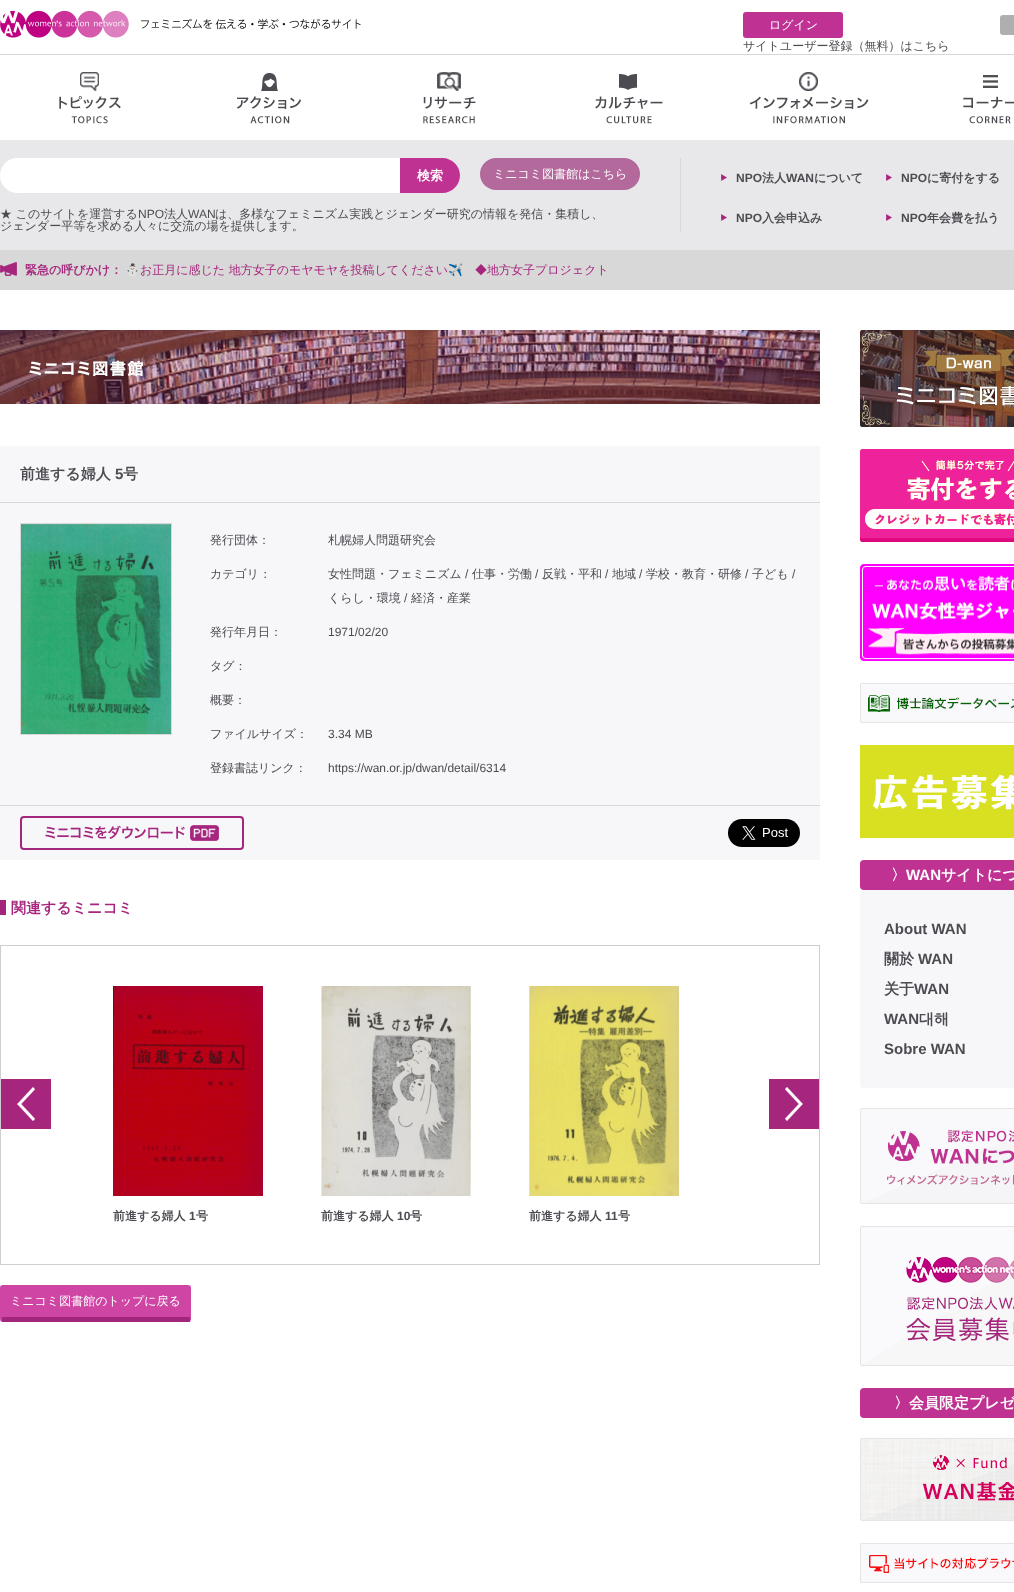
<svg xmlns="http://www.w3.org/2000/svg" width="1014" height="1592">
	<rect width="100%" height="100%" fill="#FFFFFF" />
	<rect x="0" y="54" width="1014" height="1" fill="#D8D8D8" />
	<image x="0" y="10" width="361" height="28" href="assets/img1.png" />
	<rect x="743" y="12" width="100" height="26" rx="3" fill="#BF3294" />
	<text x="769" y="29" font-family="WenQuanYi Zen Hei" font-size="12" font-weight="500" fill="#FFFFFF">ログイン</text>
	<text x="743" y="50" font-family="WenQuanYi Zen Hei" font-size="12" font-weight="500" fill="#4B4B51">サイトユーザー登録（無料）はこちら</text>
	<rect x="1000" y="15" width="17" height="20" rx="3" fill="#AFAFAF" />
	<image x="59" y="72" width="62" height="52" href="assets/img2.png" />
	<image x="236" y="73" width="66" height="51" href="assets/img3.png" />
	<image x="423" y="72" width="53" height="52" href="assets/img4.png" />
	<image x="595" y="74" width="68" height="50" href="assets/img5.png" />
	<image x="749" y="72" width="120" height="52" href="assets/img6.png" />
	<image x="963" y="75" width="51" height="49" href="assets/img7.png" />
	<rect x="0" y="140" width="1014" height="110" fill="#E8E8EA" />
	<rect x="680" y="158" width="1" height="74" fill="#D8D8D8" />
	<rect x="0" y="158" width="460" height="35" rx="17.5" fill="#FFFFFF" />
	<path d="M400 158H442.5C452 158 460 166 460 175.5C460 185 452 193 442.5 193H400Z" fill="#BF3292" />
	<text x="417" y="180" font-family="WenQuanYi Zen Hei" font-size="13" font-weight="700" fill="#FFFFFF">検索</text>
	<rect x="480" y="158" width="160" height="32" rx="16" fill="#B3699C" />
	<text x="493" y="178" font-family="WenQuanYi Zen Hei" font-size="12" font-weight="500" fill="#FFFFFF">ミニコミ図書館はこちら</text>
	<text x="0" y="218" font-family="WenQuanYi Zen Hei" font-size="12" font-weight="500" fill="#4B4B51">★ このサイトを運営する</text>
	<text x="138" y="218" font-family="Liberation Sans" font-size="12" fill="#4B4B51">NPO</text>
	<text x="164" y="218" font-family="WenQuanYi Zen Hei" font-size="12" font-weight="500" fill="#4B4B51">法人</text>
	<text x="188" y="218" font-family="Liberation Sans" font-size="12" fill="#4B4B51">WAN</text>
	<g font-family="WenQuanYi Zen Hei" font-size="12" font-weight="500" fill="#4B4B51">
		<text x="215" y="218">は、多様なフェミニズム実践とジェンダー研究の情報を発信・集積し、</text>
		<text x="0" y="230">ジェンダー平等を求める人々に交流の場を提供します。</text>
	</g>
	<image x="721" y="174" width="6" height="7" href="assets/img8.png" />
	<text x="736" y="182" font-family="Liberation Sans" font-size="12" font-weight="700" fill="#4B4B51">NPO</text>
	<text x="762" y="182" font-family="WenQuanYi Zen Hei" font-size="12" font-weight="700" fill="#4B4B51">法⼈</text>
	<text x="786" y="182" font-family="Liberation Sans" font-size="12" font-weight="700" fill="#4B4B51">WAN</text>
	<text x="814" y="182" font-family="WenQuanYi Zen Hei" font-size="12" font-weight="700" fill="#4B4B51">について</text>
	<image x="886" y="174" width="6" height="7" href="assets/img8.png" />
	<text x="901" y="182" font-family="Liberation Sans" font-size="12" font-weight="700" fill="#4B4B51">NPO</text>
	<text x="927" y="182" font-family="WenQuanYi Zen Hei" font-size="12" font-weight="700" fill="#4B4B51">に寄付をする</text>
	<image x="721" y="214" width="6" height="7" href="assets/img8.png" />
	<text x="736" y="222" font-family="Liberation Sans" font-size="12" font-weight="700" fill="#4B4B51">NPO</text>
	<text x="762" y="222" font-family="WenQuanYi Zen Hei" font-size="12" font-weight="700" fill="#4B4B51">入会申込み</text>
	<image x="886" y="214" width="6" height="7" href="assets/img8.png" />
	<text x="901" y="222" font-family="Liberation Sans" font-size="12" font-weight="700" fill="#4B4B51">NPO</text>
	<text x="927" y="222" font-family="WenQuanYi Zen Hei" font-size="12" font-weight="700" fill="#4B4B51">年会費を払う</text>
	<rect x="0" y="250" width="1014" height="40" fill="#D8D8D8" />
	<image x="0" y="262" width="17" height="14" href="assets/img9.png" />
	<text x="25" y="274" font-family="WenQuanYi Zen Hei" font-size="12" font-weight="700" fill="#A6267E">緊急の呼びかけ：</text>
	<text x="125" y="274" font-family="Noto Color Emoji" font-size="12" fill="#A6267E">⛄️</text>
	<text x="140" y="274" font-family="WenQuanYi Zen Hei" font-size="12" font-weight="500" fill="#A6267E">お正月に感じた 地方女子のモヤモヤを投稿してください</text>
	<text x="448" y="274" font-family="Noto Color Emoji" font-size="12" fill="#A6267E">✈️</text>
	<text x="475" y="274" font-family="WenQuanYi Zen Hei" font-size="12" font-weight="500" fill="#A6267E">◆地方女子プロジェクト</text>
	<image x="0" y="330" width="820" height="74" href="assets/img10.png" />
	<rect x="0" y="446" width="820" height="414" fill="#F7F7FA" />
	<rect x="0" y="502" width="820" height="1" fill="#D8D8D8" />
	<text x="20" y="479" font-family="WenQuanYi Zen Hei" font-size="15" font-weight="700" fill="#4B4B51">前進する婦人</text>
	<text x="115" y="479" font-family="Liberation Sans" font-size="15" font-weight="700" fill="#4B4B51">5</text>
	<text x="123" y="479" font-family="WenQuanYi Zen Hei" font-size="15" font-weight="700" fill="#4B4B51">号</text>
	<rect x="20.5" y="523.5" width="151" height="211" fill="none" stroke="#D8D8D8" />
	<image x="21" y="524" width="150" height="210" href="assets/img11.png" />
	<g font-family="WenQuanYi Zen Hei" font-size="12" font-weight="500" fill="#4B4B51">
		<text x="210" y="544">発行団体：</text>
		<text x="328" y="544">札幌婦人問題研究会</text>
		<text x="210" y="578">カテゴリ：</text>
		<text x="328" y="578">女性問題・フェミニズム</text>
	</g>
	<text x="465" y="578" font-family="Liberation Sans" font-size="12" fill="#4B4B51">/</text>
	<text x="472" y="578" font-family="WenQuanYi Zen Hei" font-size="12" font-weight="500" fill="#4B4B51">仕事・労働</text>
	<text x="535" y="578" font-family="Liberation Sans" font-size="12" fill="#4B4B51">/</text>
	<text x="542" y="578" font-family="WenQuanYi Zen Hei" font-size="12" font-weight="500" fill="#4B4B51">反戦・平和</text>
	<text x="605" y="578" font-family="Liberation Sans" font-size="12" fill="#4B4B51">/</text>
	<text x="612" y="578" font-family="WenQuanYi Zen Hei" font-size="12" font-weight="500" fill="#4B4B51">地域</text>
	<text x="639" y="578" font-family="Liberation Sans" font-size="12" fill="#4B4B51">/</text>
	<text x="646" y="578" font-family="WenQuanYi Zen Hei" font-size="12" font-weight="500" fill="#4B4B51">学校・教育・研修</text>
	<text x="745" y="578" font-family="Liberation Sans" font-size="12" fill="#4B4B51">/</text>
	<text x="752" y="578" font-family="WenQuanYi Zen Hei" font-size="12" font-weight="500" fill="#4B4B51">子ども</text>
	<text x="792" y="578" font-family="Liberation Sans" font-size="12" fill="#4B4B51">/</text>
	<text x="328" y="602" font-family="WenQuanYi Zen Hei" font-size="12" font-weight="500" fill="#4B4B51">くらし・環境</text>
	<text x="404" y="602" font-family="Liberation Sans" font-size="12" fill="#4B4B51">/</text>
	<g font-family="WenQuanYi Zen Hei" font-size="12" font-weight="500" fill="#4B4B51">
		<text x="411" y="602">経済・産業</text>
		<text x="210" y="636">発行年月日：</text>
	</g>
	<text x="328" y="636" font-family="Liberation Sans" font-size="12" fill="#4B4B51">1971/02/20</text>
	<g font-family="WenQuanYi Zen Hei" font-size="12" font-weight="500" fill="#4B4B51">
		<text x="210" y="670">タグ：</text>
		<text x="210" y="704">概要：</text>
		<text x="210" y="738">ファイルサイズ：</text>
	</g>
	<text x="328" y="738" font-family="Liberation Sans" font-size="12" fill="#4B4B51">3.34 MB</text>
	<text x="210" y="772" font-family="WenQuanYi Zen Hei" font-size="12" font-weight="500" fill="#4B4B51">登録書誌リンク：</text>
	<text x="328" y="772" font-family="Liberation Sans" font-size="12" fill="#4B4B51">https://wan.or.jp/dwan/detail/6314</text>
	<rect x="0" y="805" width="820" height="1" fill="#D8D8D8" />
	<rect x="21" y="817" width="222" height="32" rx="3" fill="none" stroke="#A2277C" stroke-width="2" />
	<image x="45" y="825" width="174" height="16" href="assets/img12.png" />
	<image x="728" y="819" width="72" height="28" href="assets/img13.png" />
	<rect x="0" y="900" width="6" height="15" fill="#A2277C" />
	<text x="11" y="913" font-family="WenQuanYi Zen Hei" font-size="15" font-weight="700" fill="#A6267E">関連するミニコミ</text>
	<rect x="0.5" y="945.5" width="819" height="319" fill="none" stroke="#CECECE" />
	<image x="1" y="1079" width="50" height="50" href="assets/img14.png" />
	<image x="769" y="1079" width="50" height="50" href="assets/img15.png" />
	<image x="113" y="986" width="150" height="210" href="assets/img16.png" />
	<text x="113" y="1220" font-family="WenQuanYi Zen Hei" font-size="12" font-weight="700" fill="#4B4B51">前進する婦人</text>
	<text x="189" y="1220" font-family="Liberation Sans" font-size="12" font-weight="700" fill="#4B4B51">1</text>
	<text x="196" y="1220" font-family="WenQuanYi Zen Hei" font-size="12" font-weight="700" fill="#4B4B51">号</text>
	<image x="321" y="986" width="150" height="210" href="assets/img17.png" />
	<text x="321" y="1220" font-family="WenQuanYi Zen Hei" font-size="12" font-weight="700" fill="#4B4B51">前進する婦人</text>
	<text x="397" y="1220" font-family="Liberation Sans" font-size="12" font-weight="700" fill="#4B4B51">10</text>
	<text x="410" y="1220" font-family="WenQuanYi Zen Hei" font-size="12" font-weight="700" fill="#4B4B51">号</text>
	<image x="529" y="986" width="150" height="210" href="assets/img18.png" />
	<text x="529" y="1220" font-family="WenQuanYi Zen Hei" font-size="12" font-weight="700" fill="#4B4B51">前進する婦人</text>
	<text x="605" y="1220" font-family="Liberation Sans" font-size="12" font-weight="700" fill="#4B4B51">11</text>
	<text x="618" y="1220" font-family="WenQuanYi Zen Hei" font-size="12" font-weight="700" fill="#4B4B51">号</text>
	<rect x="0" y="1285" width="191" height="37" rx="3" fill="#CF45A4" />
	<rect x="2" y="1317" width="188" height="5" fill="#A2277C" />
	<text x="10" y="1305" font-family="WenQuanYi Zen Hei" font-size="12" font-weight="500" fill="#FFFFFF">ミニコミ図書館のトップに戻る</text>
	<image x="860" y="330" width="154" height="97" href="assets/img19.png" />
	<image x="860" y="449" width="154" height="93" href="assets/img20.png" />
	<image x="860" y="564" width="154" height="97" href="assets/img21.png" />
	<image x="860" y="683" width="154" height="40" href="assets/img22.png" />
	<image x="860" y="745" width="154" height="93" href="assets/img23.png" />
	<rect x="860" y="860" width="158" height="30" rx="4" fill="#BF3292" />
	<text x="891" y="880" font-family="WenQuanYi Zen Hei" font-size="15" font-weight="700" fill="#FFFFFF">〉</text>
	<text x="906" y="880" font-family="Liberation Sans" font-size="15" font-weight="700" fill="#FFFFFF">WAN</text>
	<text x="941" y="880" font-family="WenQuanYi Zen Hei" font-size="15" font-weight="700" fill="#FFFFFF">サイトにつ</text>
	<rect x="860" y="890" width="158" height="198" rx="4" fill="#F7F7FA" />
	<text x="884" y="934" font-family="Liberation Sans" font-size="15" font-weight="700" fill="#4B4B51">About WAN</text>
	<text x="884" y="964" font-family="WenQuanYi Zen Hei" font-size="15" font-weight="700" fill="#4B4B51">關於</text>
	<text x="918" y="964" font-family="Liberation Sans" font-size="15" font-weight="700" fill="#4B4B51">WAN</text>
	<text x="884" y="994" font-family="WenQuanYi Zen Hei" font-size="15" font-weight="700" fill="#4B4B51">关于</text>
	<g font-family="Liberation Sans" font-size="15" font-weight="700" fill="#4B4B51">
		<text x="914" y="994">WAN</text>
		<text x="884" y="1024">WAN</text>
	</g>
	<text x="919" y="1024" font-family="WenQuanYi Zen Hei" font-size="15" font-weight="700" fill="#4B4B51">대해</text>
	<text x="884" y="1054" font-family="Liberation Sans" font-size="15" font-weight="700" fill="#4B4B51">Sobre WAN</text>
	<image x="860" y="1108" width="154" height="96" href="assets/img24.png" />
	<image x="860" y="1226" width="154" height="140" href="assets/img25.png" />
	<rect x="860" y="1388" width="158" height="30" rx="4" fill="#BF3292" />
	<text x="894" y="1408" font-family="WenQuanYi Zen Hei" font-size="15" font-weight="700" fill="#FFFFFF">〉会員限定プレゼ</text>
	<image x="860" y="1438" width="154" height="83" href="assets/img26.png" />
	<image x="860" y="1543" width="154" height="40" href="assets/img27.png" />
</svg>
